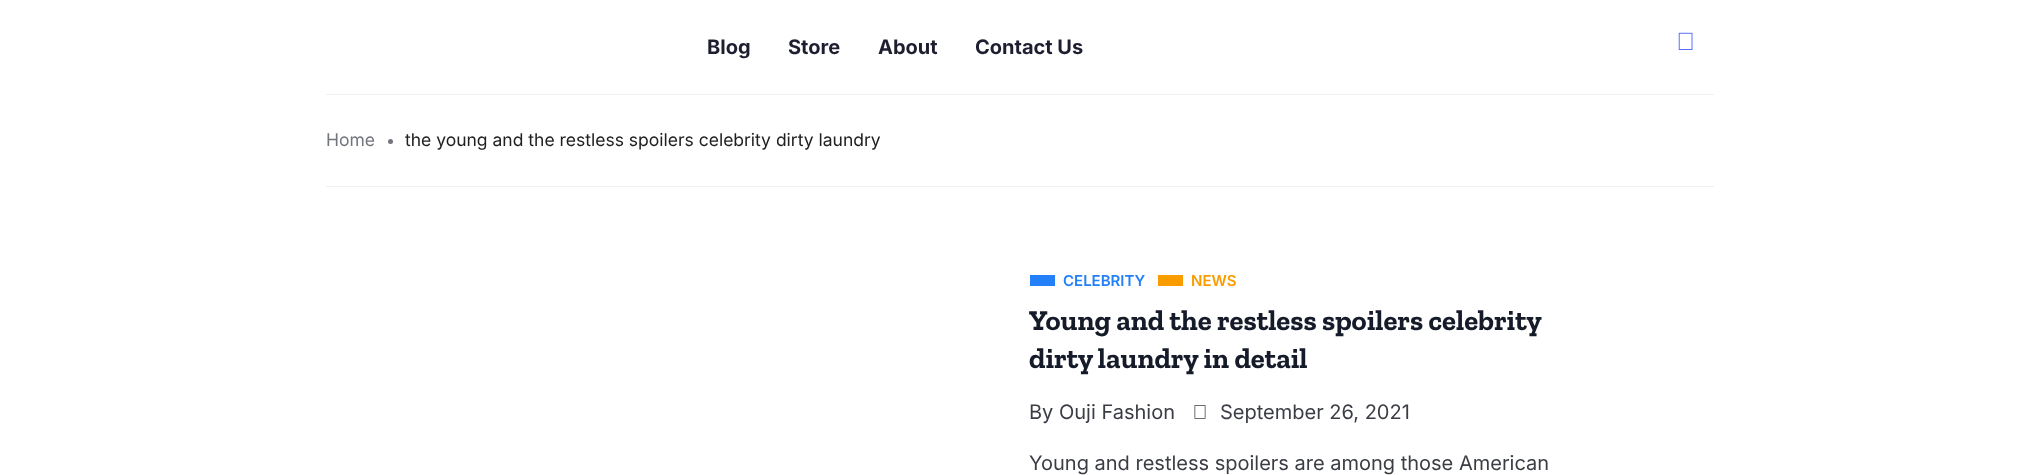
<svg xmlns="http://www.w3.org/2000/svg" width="2040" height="475">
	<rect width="100%" height="100%" fill="#FFFFFF" />
	<g font-family="Inter" font-size="20" font-weight="700" fill="#1E1E31">
		<text x="707" y="54">Blog</text>
		<text x="788" y="54">Store</text>
		<text x="878" y="54">About</text>
		<text x="975" y="54">Contact Us</text>
	</g>
	<image x="1678" y="32" width="15" height="18" href="assets/img1.png" />
	<rect x="326" y="94" width="1388" height="1" fill="#F0F0F0" />
	<rect x="326" y="186" width="1388" height="1" fill="#F0F0F0" />
	<text x="326" y="146" font-family="Inter" font-size="17.5" fill="#72757B">Home</text>
	<circle cx="390.5" cy="141.5" r="2.5" fill="#72757B" />
	<text x="405" y="146" font-family="Inter" font-size="17.5" fill="#202020">the young and the restless spoilers celebrity dirty laundry</text>
	<rect x="1030" y="275" width="25" height="11" fill="#2380F9" />
	<text x="1063" y="286" font-family="Inter" font-size="15" font-weight="600" fill="#2380F9">CELEBRITY</text>
	<rect x="1158" y="275" width="25" height="11" fill="#F99C00" />
	<text x="1191" y="286" font-family="Inter" font-size="15" font-weight="600" fill="#F99C00">NEWS</text>
	<g font-family="Zilla Slab" font-size="28.75" font-weight="700" fill="#161B2A">
		<text x="1029" y="330">Young and the restless spoilers celebrity</text>
		<text x="1029" y="368">dirty laundry in detail</text>
	</g>
	<text x="1029" y="419" font-family="Inter" font-size="20" fill="#3A3D43">By Ouji Fashion</text>
	<image x="1194" y="405" width="12" height="14" href="assets/img2.png" />
	<g font-family="Inter" font-size="20" fill="#3A3D43">
		<text x="1220" y="419">September 26, 2021</text>
		<text x="1029" y="470">Young and restless spoilers are among those American</text>
	</g>
</svg>
